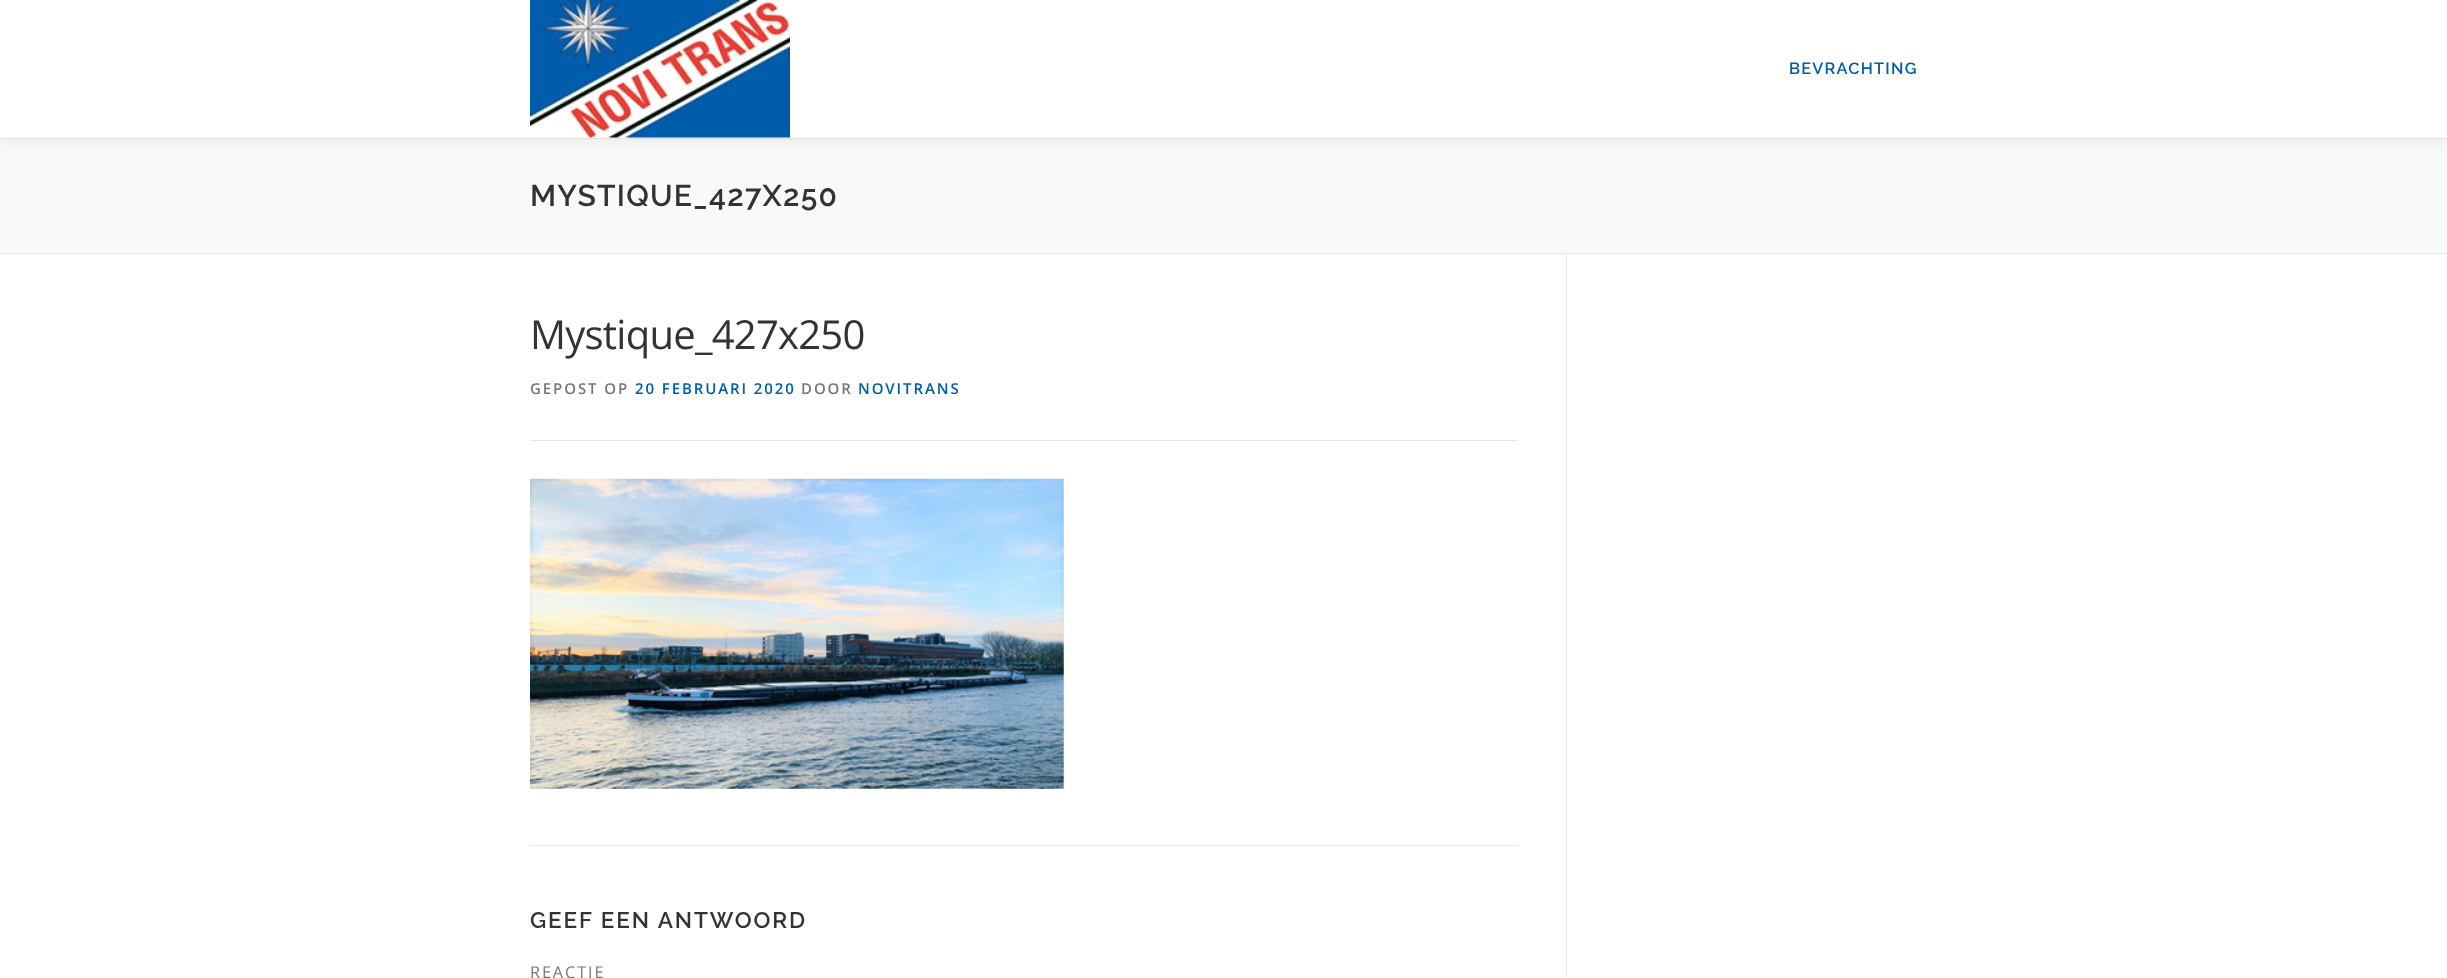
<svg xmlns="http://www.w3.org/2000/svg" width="2447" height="978">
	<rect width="100%" height="100%" fill="#FFFFFF" />
	<rect x="0" y="139" width="2447" height="114" fill="#F8F9F9" />
	<rect x="0" y="138" width="2447" height="1" fill="#E9E9E9" />
	<rect x="0" y="6" width="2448" height="138" fill="#323232" fill-opacity="0.06" filter="blur(6px)" />
	<rect x="0" y="1" width="2447" height="137" fill="#FFFFFF" />
	<image x="530" y="0" width="260" height="138" href="assets/img1.png" />
	<text x="1789" y="74" font-family="Raleway" font-size="16.25" font-weight="600" letter-spacing="1.25" fill="#005DAB">BEVRACHTING</text>
	<rect x="0" y="253" width="2447" height="1" fill="#E9E9E9" />
	<text x="530" y="206" font-family="Raleway" font-size="30" font-weight="600" letter-spacing="1.25" fill="#333333">MYSTIQUE_427X250</text>
	<rect x="1566" y="254" width="1" height="724" fill="#E9E9E9" />
	<text x="530" y="349" font-family="Open Sans" font-size="40" letter-spacing="-0.75" fill="#333333">Mystique_427x250</text>
	<rect x="530" y="440" width="988" height="1" fill="#E9E9E9" />
	<text x="530" y="394" font-family="Open Sans" font-size="15" font-weight="600" letter-spacing="1.9" fill="#777777">GEPOST OP</text>
	<text x="635" y="394" font-family="Open Sans" font-size="15" font-weight="600" letter-spacing="1.9" fill="#005DAB">20 FEBRUARI 2020</text>
	<text x="801" y="394" font-family="Open Sans" font-size="15" font-weight="600" letter-spacing="1.9" fill="#777777">DOOR</text>
	<text x="858" y="394" font-family="Open Sans" font-size="15" font-weight="600" letter-spacing="1.9" fill="#005DAB">NOVITRANS</text>
	<image x="530" y="478" width="534" height="311" href="assets/img2.png" />
	<rect x="530" y="845" width="988" height="1" fill="#E9E9E9" />
	<text x="530" y="928" font-family="Raleway" font-size="22.5" font-weight="600" letter-spacing="1.9" fill="#333333">GEEF EEN ANTWOORD</text>
	<text x="530" y="978" font-family="Open Sans" font-size="16.25" letter-spacing="1.9" fill="#777777">REACTIE</text>
</svg>
